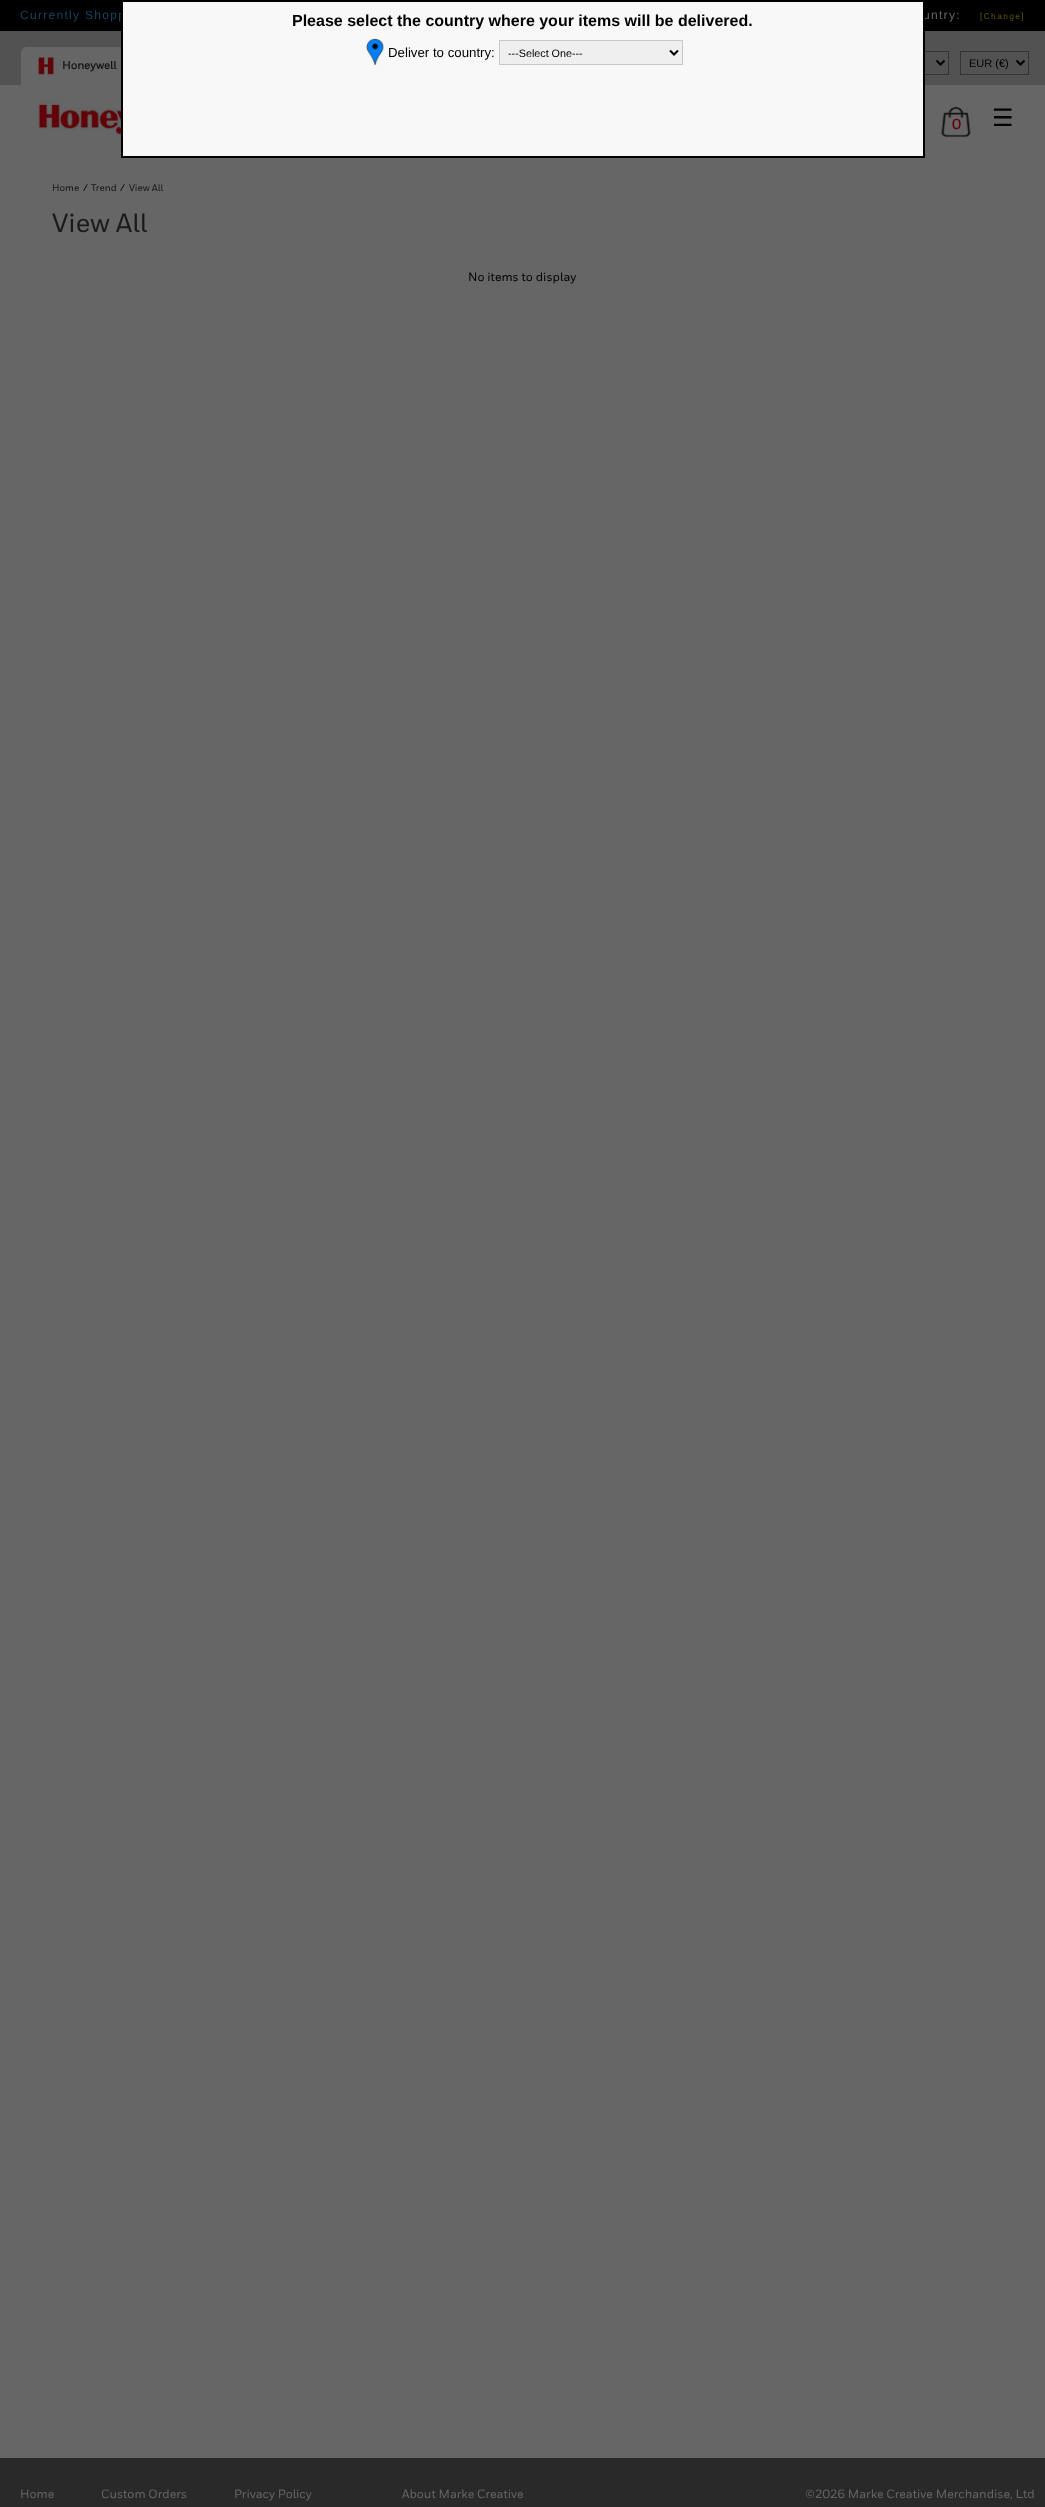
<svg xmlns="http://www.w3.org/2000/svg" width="1045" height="2507">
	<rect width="100%" height="100%" fill="#525252" />
	<rect x="0" y="0" width="1045" height="31" fill="#000000" />
	<text x="20" y="19" font-family="Liberation Sans" font-size="12" letter-spacing="1.3" fill="#15455E">Currently Shopp</text>
	<text x="923" y="19" font-family="Liberation Sans" font-size="12" letter-spacing="1.3" fill="#666666">untry:</text>
	<text x="980" y="19" font-family="Liberation Sans" font-size="8.5" letter-spacing="1.3" fill="#5F5607">[Change]</text>
	<rect x="0" y="85" width="1045" height="2373" fill="#666666" />
	<path d="M27 47H125C128.5 47 131 49.5 131 53V85H21V53C21 49.5 23.5 47 27 47Z" fill="#666666" />
	<rect x="879.5" y="51.5" width="69" height="23" fill="none" stroke="#333333" />
	<rect x="122" y="1" width="802" height="156" fill="#F8F8F8" stroke="#000000" stroke-width="2" />
	<text x="292" y="26" font-family="Liberation Sans" font-size="16" font-weight="700" fill="#000000">Please select the country where your items will be delivered.</text>
	<image x="366" y="38" width="19" height="27" href="assets/img1.png" />
	<text x="388" y="57" font-family="Liberation Sans" font-size="13.25" fill="#000000">Deliver to country:</text>
	<rect x="499.5" y="40.5" width="183" height="24" fill="#EFEFEF" stroke="#C8C8C8" />
	<path d="M670 50.5L674 54.5L678 50.5" fill="none" stroke="#000000" stroke-width="2" />
	<text x="508" y="57" font-family="Liberation Sans" font-size="10.75" fill="#000000">---Select One---</text>
	<image x="38" y="56" width="16" height="19" href="assets/img2.png" />
	<text x="62" y="69" font-family="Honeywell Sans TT" font-size="11" font-weight="700" fill="#141414">Honeywell</text>
	<path d="M936.5 60.5L940.5 64.5L944.5 60.5" fill="none" stroke="#000000" stroke-width="2" />
	<rect x="960.5" y="51.5" width="68" height="23" fill="none" stroke="#333333" />
	<path d="M1016.5 60.5L1020.5 64.5L1024.5 60.5" fill="none" stroke="#000000" stroke-width="2" />
	<text x="969" y="67" font-family="Liberation Sans" font-size="11" fill="#000000">EUR (€)</text>
	<image x="35" y="98" width="86" height="39" href="assets/img3.png" />
	<image x="941" y="106" width="30" height="32" href="assets/img4.png" />
	<text x="952" y="129" font-family="Honeywell Sans TT" font-size="14" font-weight="700" fill="#650009">0</text>
	<text x="992" y="126" font-family="DejaVu Sans" font-size="24" fill="#000000">☰</text>
	<text x="52" y="191" font-family="Honeywell Sans TT" font-size="9.5" font-weight="500" fill="#141414">Home</text>
	<text x="83" y="191" font-family="Honeywell Sans TT" font-size="9.5" font-weight="500" fill="#000000">/</text>
	<text x="91" y="191" font-family="Honeywell Sans TT" font-size="9.5" font-weight="500" fill="#141414">Trend</text>
	<text x="120" y="191" font-family="Honeywell Sans TT" font-size="9.5" font-weight="500" fill="#000000">/</text>
	<text x="129" y="191" font-family="Honeywell Sans TT" font-size="9.5" font-weight="500" fill="#141414">View All</text>
	<text x="52" y="232" font-family="Honeywell Sans TT" font-size="26.5" font-weight="500" fill="#1A1A1A">View All</text>
	<text x="468" y="281" font-family="Honeywell Sans TT" font-size="12" font-weight="500" fill="#000000">No items to display</text>
	<rect x="0" y="2458" width="1045" height="49" fill="#292929" />
	<g font-family="Honeywell Sans TT" font-size="12" font-weight="500" fill="#666666">
		<text x="20" y="2498">Home</text>
		<text x="101" y="2498">Custom Orders</text>
		<text x="234" y="2498">Privacy Policy</text>
		<text x="402" y="2498">About Marke Creative</text>
		<text x="805" y="2498">©2026 Marke Creative Merchandise, Ltd</text>
	</g>
</svg>
